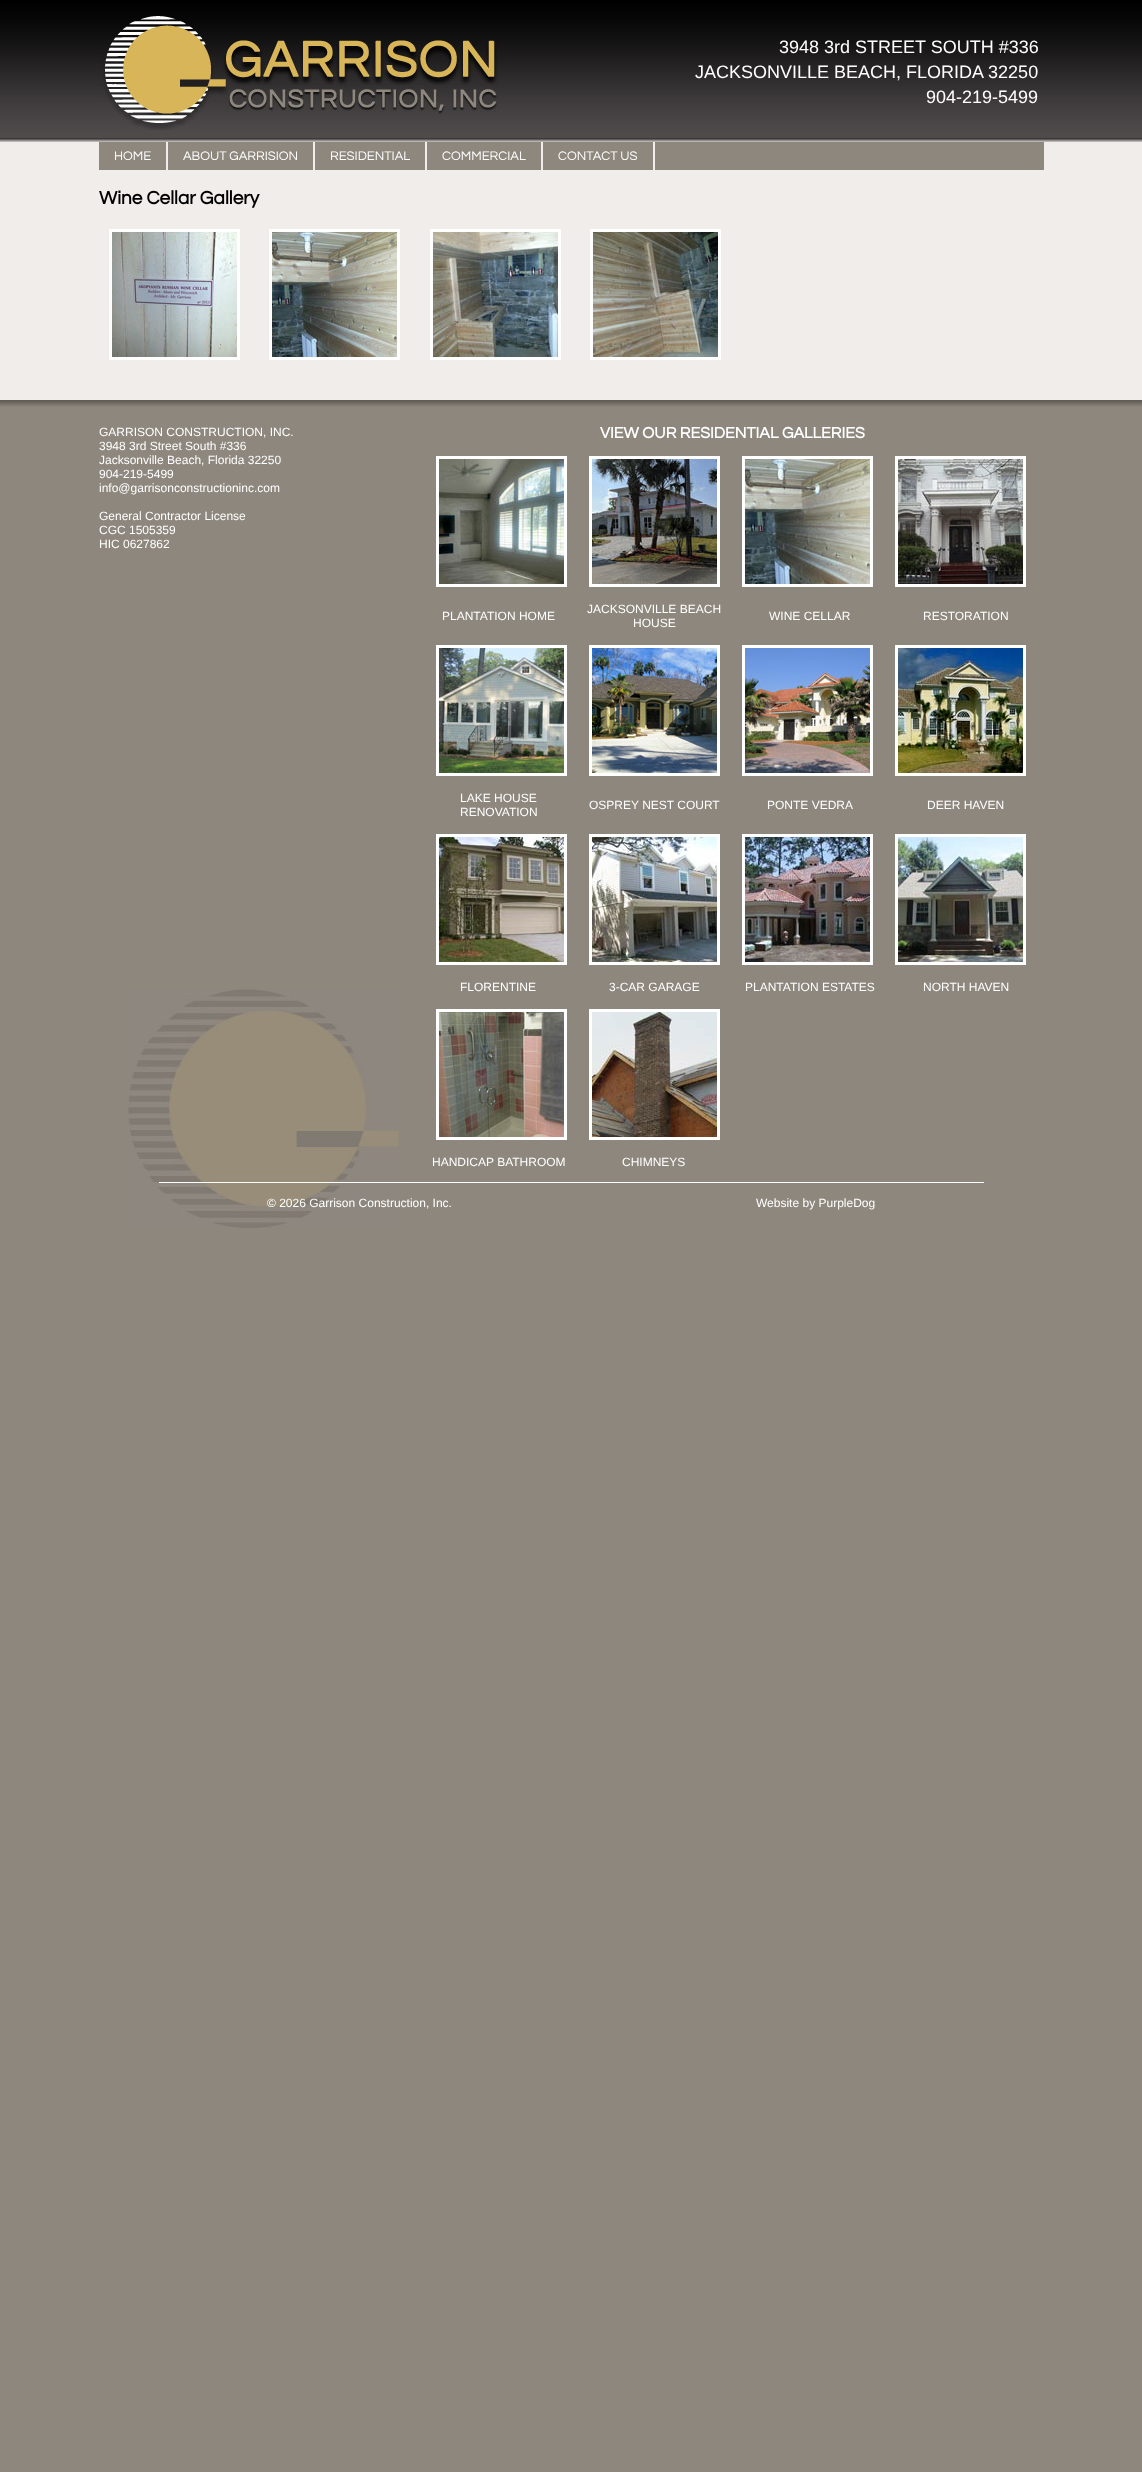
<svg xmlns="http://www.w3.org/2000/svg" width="1142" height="2472">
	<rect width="100%" height="100%" fill="#8E877E" />
	<rect x="0" y="142" width="1142" height="258" fill="#F1EDEA" />
	<image x="0" y="0" width="1142" height="142" href="assets/img1.png" />
	<image x="103" y="16" width="396" height="114" href="assets/img2.png" />
	<g font-family="Liberation Sans" font-size="18" fill="#FFFFFF">
		<text x="779" y="53">3948 3rd STREET SOUTH #336</text>
		<text x="695" y="78">JACKSONVILLE BEACH, FLORIDA 32250</text>
		<text x="926" y="103">904-219-5499</text>
	</g>
	<rect x="99" y="142" width="945" height="28" fill="#8E877E" />
	<rect x="166" y="142" width="2" height="28" fill="#F1EDEA" />
	<text x="114" y="160" font-family="Questrial" font-size="13" fill="#FFFFFF">HOME</text>
	<rect x="313" y="142" width="2" height="28" fill="#F1EDEA" />
	<text x="183" y="160" font-family="Questrial" font-size="13" fill="#FFFFFF">ABOUT GARRISION</text>
	<rect x="425" y="142" width="2" height="28" fill="#F1EDEA" />
	<text x="330" y="160" font-family="Questrial" font-size="13" fill="#FFFFFF">RESIDENTIAL</text>
	<rect x="541" y="142" width="2" height="28" fill="#F1EDEA" />
	<text x="442" y="160" font-family="Questrial" font-size="13" fill="#FFFFFF">COMMERCIAL</text>
	<rect x="653" y="142" width="2" height="28" fill="#F1EDEA" />
	<text x="558" y="160" font-family="Questrial" font-size="13" fill="#FFFFFF">CONTACT US</text>
	<text x="99" y="204" font-family="Questrial" font-size="19" font-weight="700" fill="#000000">Wine Cellar Gallery</text>
	<rect x="110.5" y="230.5" width="128" height="128" fill="none" stroke="#FFFFFF" stroke-width="3" />
	<image x="112" y="232" width="125" height="125" href="assets/img3.png" />
	<rect x="270.5" y="230.5" width="128" height="128" fill="none" stroke="#FFFFFF" stroke-width="3" />
	<image x="272" y="232" width="125" height="125" href="assets/img4.png" />
	<rect x="431.5" y="230.5" width="128" height="128" fill="none" stroke="#FFFFFF" stroke-width="3" />
	<image x="433" y="232" width="125" height="125" href="assets/img5.png" />
	<rect x="591.5" y="230.5" width="128" height="128" fill="none" stroke="#FFFFFF" stroke-width="3" />
	<image x="593" y="232" width="125" height="125" href="assets/img6.png" />
	<image x="0" y="400" width="1142" height="7" href="assets/img7.png" />
	<image x="128" y="989" width="271" height="239" href="assets/img8.png" />
	<text x="99" y="436" font-family="Liberation Sans" font-size="12" fill="#FFFFFF">GARRISON CONSTRUCTION, INC.</text>
	<text x="600" y="438" font-family="Questrial" font-size="16" font-weight="700" fill="#FFFFFF">VIEW OUR RESIDENTIAL GALLERIES</text>
	<rect x="437.5" y="457.5" width="128" height="128" fill="none" stroke="#FFFFFF" stroke-width="3" />
	<image x="439" y="459" width="125" height="125" href="assets/img9.png" />
	<rect x="590.5" y="457.5" width="128" height="128" fill="none" stroke="#FFFFFF" stroke-width="3" />
	<image x="592" y="459" width="125" height="125" href="assets/img10.png" />
	<rect x="743.5" y="457.5" width="128" height="128" fill="none" stroke="#FFFFFF" stroke-width="3" />
	<image x="745" y="459" width="125" height="125" href="assets/img4.png" />
	<rect x="896.5" y="457.5" width="128" height="128" fill="none" stroke="#FFFFFF" stroke-width="3" />
	<image x="898" y="459" width="125" height="125" href="assets/img11.png" />
	<g font-family="Liberation Sans" font-size="12" fill="#FFFFFF">
		<text x="442" y="620">PLANTATION HOME</text>
		<text x="587" y="613">JACKSONVILLE BEACH</text>
		<text x="633" y="627">HOUSE</text>
		<text x="769" y="620">WINE CELLAR</text>
		<text x="923" y="620">RESTORATION</text>
	</g>
	<rect x="437.5" y="646.5" width="128" height="128" fill="none" stroke="#FFFFFF" stroke-width="3" />
	<image x="439" y="648" width="125" height="125" href="assets/img12.png" />
	<rect x="590.5" y="646.5" width="128" height="128" fill="none" stroke="#FFFFFF" stroke-width="3" />
	<image x="592" y="648" width="125" height="125" href="assets/img13.png" />
	<rect x="743.5" y="646.5" width="128" height="128" fill="none" stroke="#FFFFFF" stroke-width="3" />
	<image x="745" y="648" width="125" height="125" href="assets/img14.png" />
	<rect x="896.5" y="646.5" width="128" height="128" fill="none" stroke="#FFFFFF" stroke-width="3" />
	<image x="898" y="648" width="125" height="125" href="assets/img15.png" />
	<g font-family="Liberation Sans" font-size="12" fill="#FFFFFF">
		<text x="460" y="802">LAKE HOUSE</text>
		<text x="460" y="816">RENOVATION</text>
		<text x="589" y="809">OSPREY NEST COURT</text>
		<text x="767" y="809">PONTE VEDRA</text>
		<text x="927" y="809">DEER HAVEN</text>
	</g>
	<rect x="437.5" y="835.5" width="128" height="128" fill="none" stroke="#FFFFFF" stroke-width="3" />
	<image x="439" y="837" width="125" height="125" href="assets/img16.png" />
	<rect x="590.5" y="835.5" width="128" height="128" fill="none" stroke="#FFFFFF" stroke-width="3" />
	<image x="592" y="837" width="125" height="125" href="assets/img17.png" />
	<rect x="743.5" y="835.5" width="128" height="128" fill="none" stroke="#FFFFFF" stroke-width="3" />
	<image x="745" y="837" width="125" height="125" href="assets/img18.png" />
	<rect x="896.5" y="835.5" width="128" height="128" fill="none" stroke="#FFFFFF" stroke-width="3" />
	<image x="898" y="837" width="125" height="125" href="assets/img19.png" />
	<g font-family="Liberation Sans" font-size="12" fill="#FFFFFF">
		<text x="460" y="991">FLORENTINE</text>
		<text x="609" y="991">3-CAR GARAGE</text>
		<text x="745" y="991">PLANTATION ESTATES</text>
		<text x="923" y="991">NORTH HAVEN</text>
	</g>
	<rect x="437.5" y="1010.5" width="128" height="128" fill="none" stroke="#FFFFFF" stroke-width="3" />
	<image x="439" y="1012" width="125" height="125" href="assets/img20.png" />
	<rect x="590.5" y="1010.5" width="128" height="128" fill="none" stroke="#FFFFFF" stroke-width="3" />
	<image x="592" y="1012" width="125" height="125" href="assets/img21.png" />
	<g font-family="Liberation Sans" font-size="12" fill="#FFFFFF">
		<text x="432" y="1166">HANDICAP BATHROOM</text>
		<text x="622" y="1166">CHIMNEYS</text>
		<text x="99" y="450">3948 3rd Street South #336</text>
		<text x="99" y="464">Jacksonville Beach, Florida 32250</text>
		<text x="99" y="478">904-219-5499</text>
		<text x="99" y="492">info@garrisonconstructioninc.com</text>
		<text x="99" y="520">General Contractor License</text>
		<text x="99" y="534">CGC 1505359</text>
		<text x="99" y="548">HIC 0627862</text>
	</g>
	<rect x="159" y="1182" width="825" height="1" fill="#FFFFFF" />
	<g font-family="Liberation Sans" font-size="12" fill="#FFFFFF">
		<text x="267" y="1207">© 2026 Garrison Construction, Inc.</text>
		<text x="756" y="1207">Website by PurpleDog</text>
	</g>
</svg>
